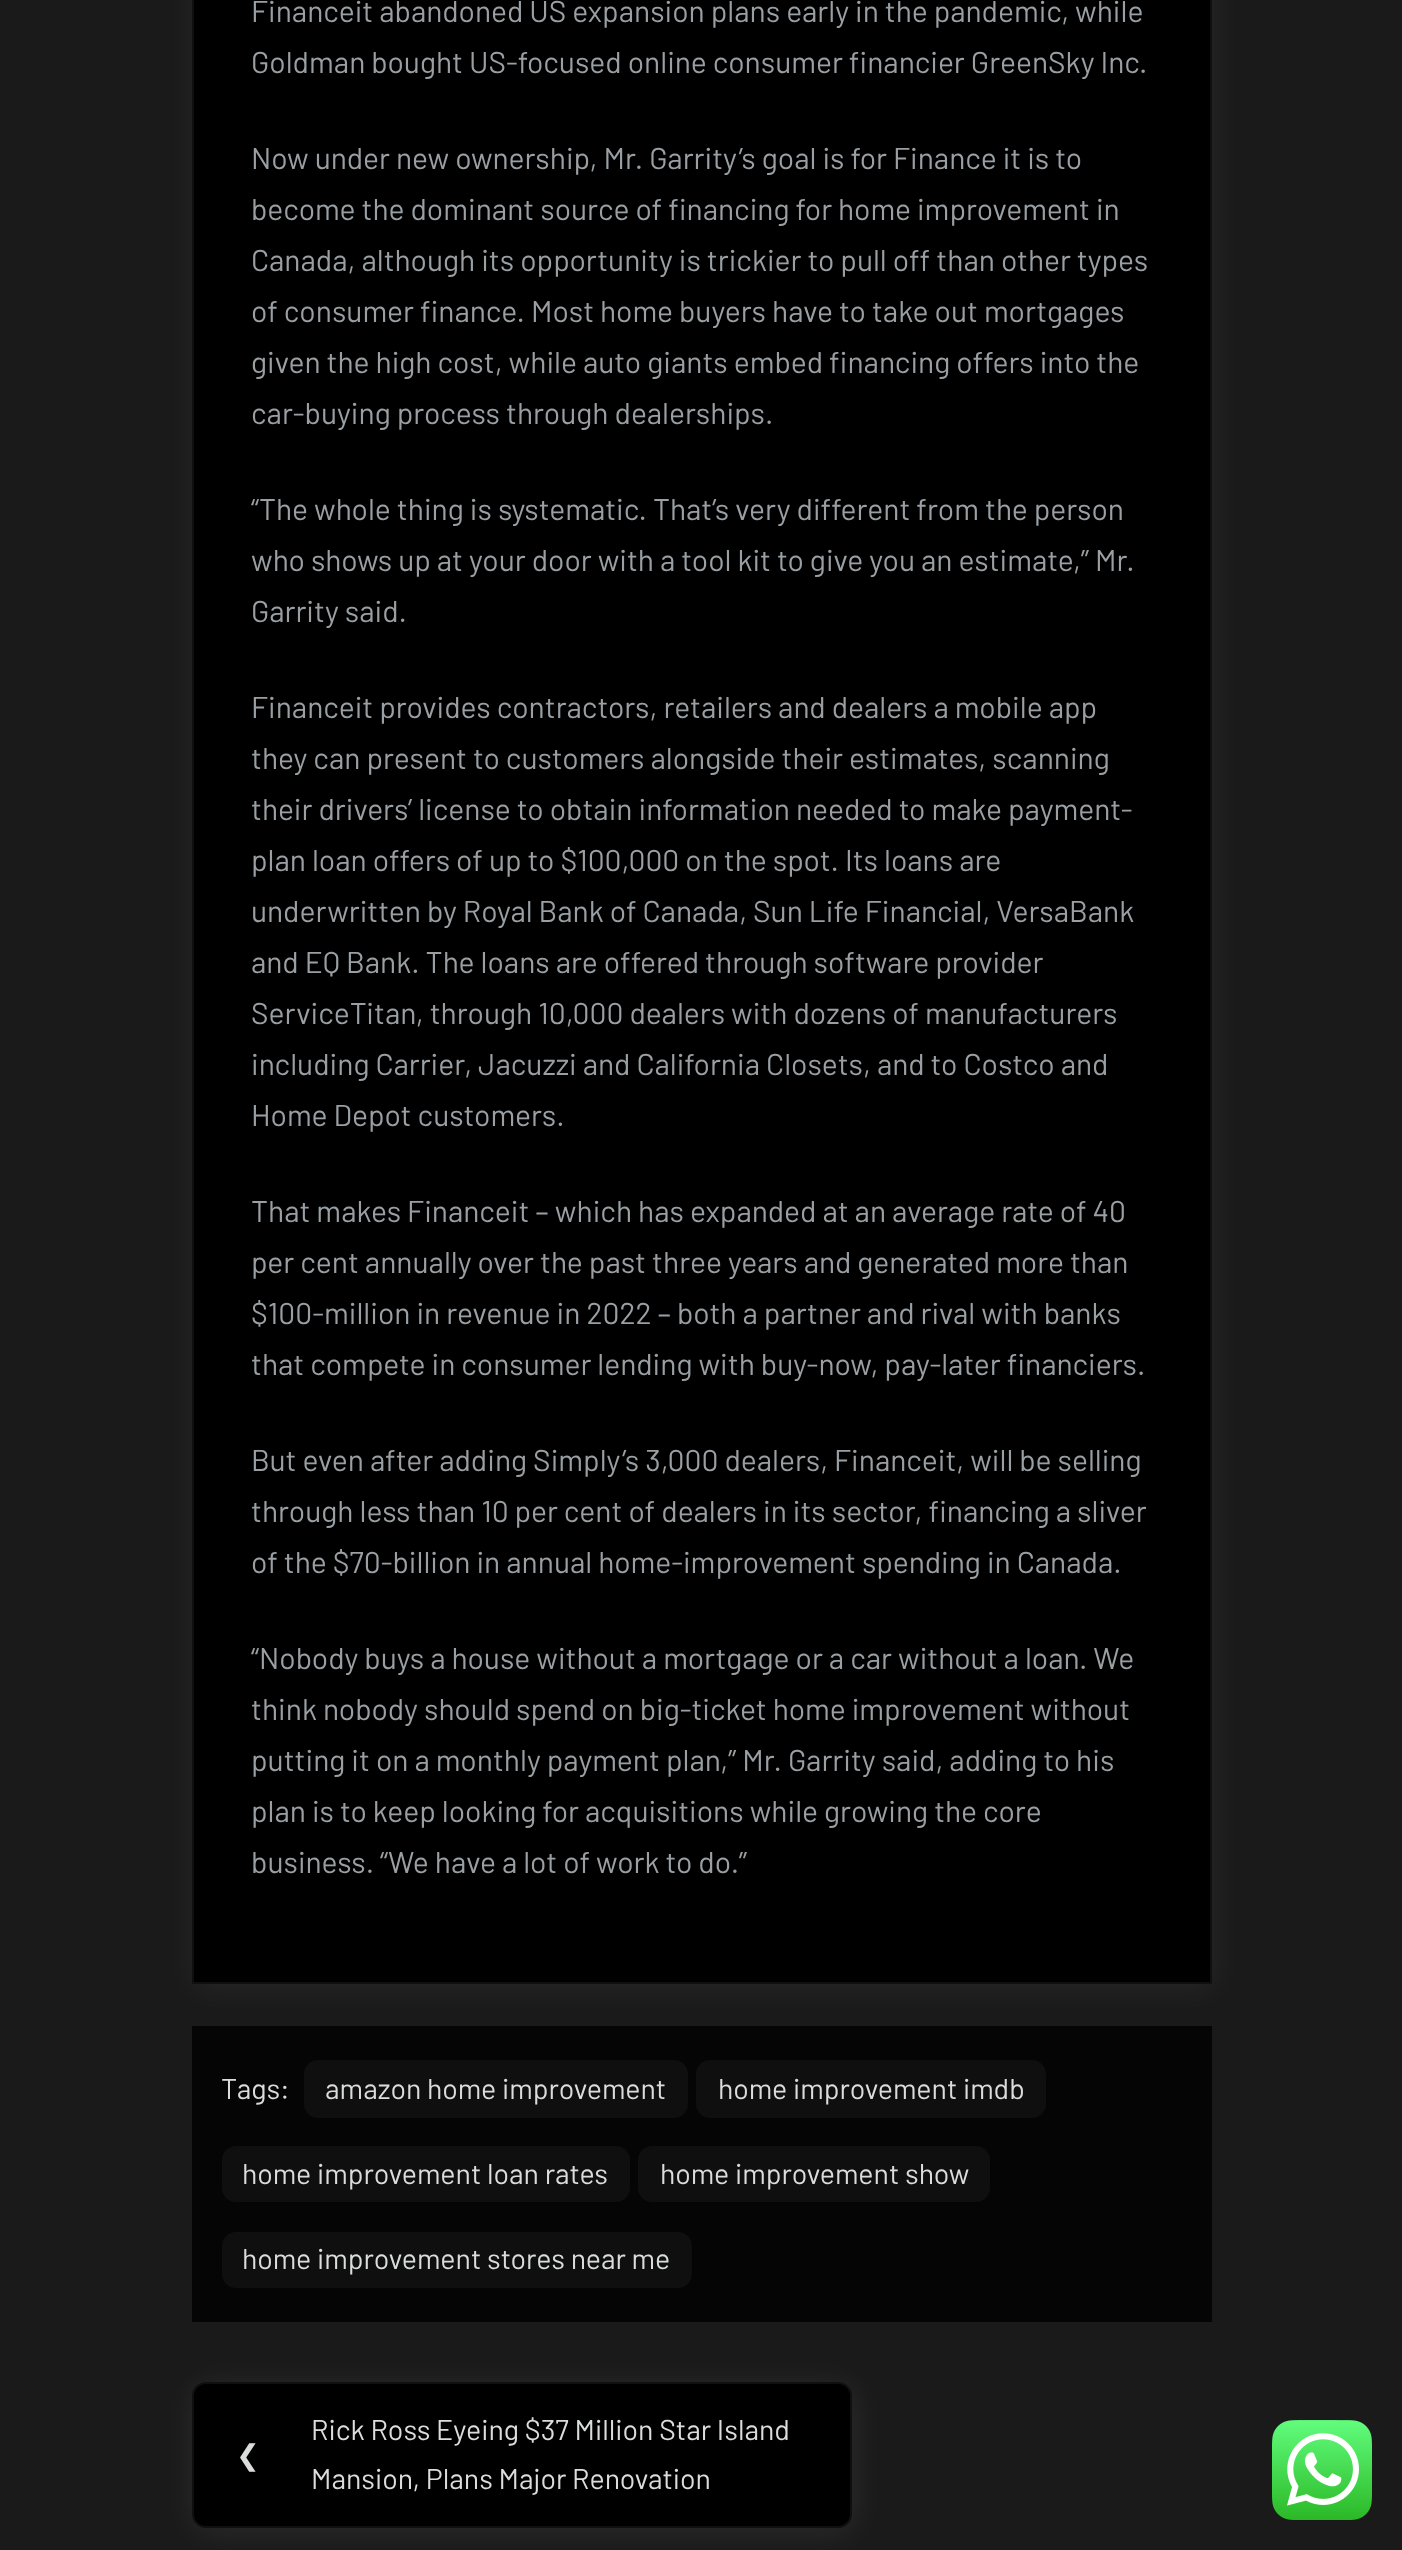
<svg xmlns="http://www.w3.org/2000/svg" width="1402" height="2550">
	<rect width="100%" height="100%" fill="#1A1A1A" />
	<rect x="194" y="-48" width="1020" height="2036" fill="#FFFFFF" fill-opacity="0.06" filter="blur(16px)" />
	<rect x="193" y="-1" width="1018" height="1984" fill="#000000" stroke="#101010" stroke-width="2" />
	<g font-family="Barlow" font-size="30" fill="#999FA3">
		<text x="251" y="22">Financeit abandoned US expansion plans early in the pandemic, while</text>
		<text x="251" y="73">Goldman bought US-focused online consumer financier GreenSky Inc.</text>
		<text x="251" y="169">Now under new ownership, Mr. Garrity’s goal is for Finance it is to</text>
		<text x="251" y="220">become the dominant source of financing for home improvement in</text>
		<text x="251" y="271">Canada, although its opportunity is trickier to pull off than other types</text>
		<text x="251" y="322">of consumer finance. Most home buyers have to take out mortgages</text>
		<text x="251" y="373">given the high cost, while auto giants embed financing offers into the</text>
		<text x="251" y="424">car-buying process through dealerships.</text>
		<text x="251" y="520">“The whole thing is systematic. That’s very different from the person</text>
		<text x="251" y="571">who shows up at your door with a tool kit to give you an estimate,” Mr.</text>
		<text x="251" y="622">Garrity said.</text>
		<text x="251" y="718">Financeit provides contractors, retailers and dealers a mobile app</text>
		<text x="251" y="769">they can present to customers alongside their estimates, scanning</text>
		<text x="251" y="820">their drivers’ license to obtain information needed to make payment-</text>
		<text x="251" y="871">plan loan offers of up to $100,000 on the spot. Its loans are</text>
		<text x="251" y="922">underwritten by Royal Bank of Canada, Sun Life Financial, VersaBank</text>
		<text x="251" y="973">and EQ Bank. The loans are offered through software provider</text>
		<text x="251" y="1024">ServiceTitan, through 10,000 dealers with dozens of manufacturers</text>
		<text x="251" y="1075">including Carrier, Jacuzzi and California Closets, and to Costco and</text>
		<text x="251" y="1126">Home Depot customers.</text>
		<text x="251" y="1222">That makes Financeit – which has expanded at an average rate of 40</text>
		<text x="251" y="1273">per cent annually over the past three years and generated more than</text>
		<text x="251" y="1324">$100-million in revenue in 2022 – both a partner and rival with banks</text>
		<text x="251" y="1375">that compete in consumer lending with buy-now, pay-later financiers.</text>
		<text x="251" y="1471">But even after adding Simply’s 3,000 dealers, Financeit, will be selling</text>
		<text x="251" y="1522">through less than 10 per cent of dealers in its sector, financing a sliver</text>
		<text x="251" y="1573">of the $70-billion in annual home-improvement spending in Canada.</text>
		<text x="251" y="1669">“Nobody buys a house without a mortgage or a car without a loan. We</text>
		<text x="251" y="1720">think nobody should spend on big-ticket home improvement without</text>
		<text x="251" y="1771">putting it on a monthly payment plan,” Mr. Garrity said, adding to his</text>
		<text x="251" y="1822">plan is to keep looking for acquisitions while growing the core</text>
		<text x="251" y="1873">business. “We have a lot of work to do.”</text>
	</g>
	<rect x="192" y="2026" width="1020" height="296" fill="#050505" />
	<text x="221" y="2099" font-family="Barlow" font-size="28.5" fill="#DBDCDC">Tags:</text>
	<rect x="304" y="2060" width="384" height="58" rx="14" fill="#0F0F0F" />
	<text x="325" y="2099" font-family="Barlow" font-size="28.5" fill="#DBDCDC">amazon home improvement</text>
	<rect x="696" y="2060" width="350" height="58" rx="14" fill="#0F0F0F" />
	<text x="718" y="2099" font-family="Barlow" font-size="28.5" fill="#DBDCDC">home improvement imdb</text>
	<rect x="222" y="2146" width="408" height="56" rx="14" fill="#0F0F0F" />
	<text x="242" y="2184" font-family="Barlow" font-size="28.5" fill="#DBDCDC">home improvement loan rates</text>
	<rect x="638" y="2146" width="352" height="56" rx="14" fill="#0F0F0F" />
	<text x="660" y="2184" font-family="Barlow" font-size="28.5" fill="#DBDCDC">home improvement show</text>
	<rect x="222" y="2232" width="470" height="56" rx="14" fill="#0F0F0F" />
	<text x="242" y="2269" font-family="Barlow" font-size="28.5" fill="#DBDCDC">home improvement stores near me</text>
	<rect x="194" y="2386" width="660" height="146" rx="14" fill="#FFFFFF" fill-opacity="0.08" filter="blur(16px)" />
	<rect x="193" y="2383" width="658" height="144" rx="13" fill="#000000" stroke="#101010" stroke-width="2" />
	<text x="236" y="2465" font-family="DejaVu Sans" font-size="28.5" fill="#DBDCDC">❮</text>
	<g font-family="Barlow" font-size="28.5" fill="#DBDCDC">
		<text x="311" y="2440">Rick Ross Eyeing $37 Million Star Island</text>
		<text x="311" y="2489">Mansion, Plans Major Renovation</text>
	</g>
	<image x="1272" y="2420" width="100" height="100" href="assets/img1.png" />
</svg>
